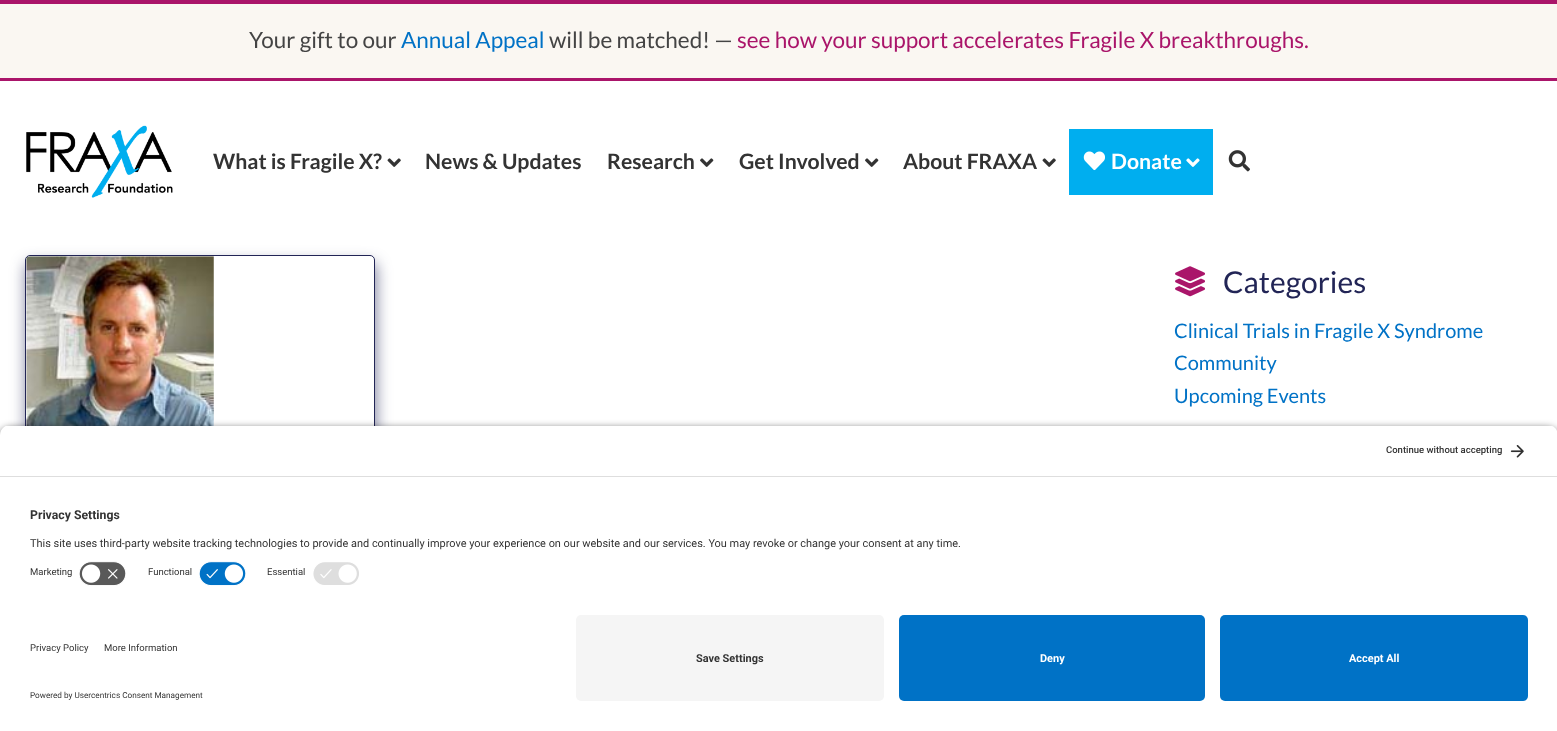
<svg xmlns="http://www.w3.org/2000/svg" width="1557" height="731">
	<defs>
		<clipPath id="clip1"><path d="M10 425H1548C1553.5 425 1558 429.5 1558 435V605H0V435C0 429.5 4.5 425 10 425Z" /></clipPath>
	</defs>
	<rect width="100%" height="100%" fill="#FFFFFF" />
	<rect x="0" y="4" width="1557" height="74" fill="#FAF7F2" />
	<rect x="0" y="0" width="1557" height="4" fill="#AA156A" />
	<rect x="0" y="78" width="1557" height="3" fill="#AA156A" />
	<text x="249" y="48" font-family="Lato" font-size="22.5" fill="#444444">Your gift to our</text>
	<text x="401" y="48" font-family="Lato" font-size="22.5" fill="#0072C6">Annual Appeal</text>
	<text x="549" y="48" font-family="Lato" font-size="22.5" fill="#444444">will be matched! —</text>
	<text x="737" y="48" font-family="Lato" font-size="22.5" fill="#AA156A">see how your support accelerates Fragile X breakthroughs.</text>
	<image x="26" y="125" width="147" height="73" href="assets/img1.png" />
	<text x="213" y="169" font-family="Lato" font-size="21.25" font-weight="700" fill="#333333">What is Fragile X?</text>
	<image x="387" y="158" width="14" height="9" href="assets/img2.png" />
	<g font-family="Lato" font-size="21.25" font-weight="700" fill="#333333">
		<text x="425" y="169">News &amp; Updates</text>
		<text x="607" y="169">Research</text>
	</g>
	<image x="700" y="158" width="14" height="9" href="assets/img3.png" />
	<text x="739" y="169" font-family="Lato" font-size="21.25" font-weight="700" fill="#333333">Get Involved</text>
	<image x="865" y="158" width="14" height="9" href="assets/img3.png" />
	<text x="903" y="169" font-family="Lato" font-size="21.25" font-weight="700" fill="#333333">About FRAXA</text>
	<image x="1042" y="158" width="14" height="9" href="assets/img2.png" />
	<rect x="1069" y="129" width="144" height="66" fill="#00AEEF" />
	<image x="1083" y="151" width="22" height="20" href="assets/img4.png" />
	<text x="1111" y="169" font-family="Lato" font-size="21.25" font-weight="700" fill="#FFFFFF">Donate</text>
	<image x="1186" y="158" width="14" height="9" href="assets/img5.png" />
	<image x="1228" y="150" width="22" height="22" href="assets/img6.png" />
	<rect x="26" y="263" width="350" height="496" rx="5" fill="#222556" fill-opacity="0.6" filter="blur(7.5px)" />
	<rect x="25.5" y="255.5" width="349" height="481" rx="4.5" fill="#FFFFFF" stroke="#222556" />
	<image x="26" y="256" width="188" height="170" href="assets/img7.png" />
	<image x="1175" y="266" width="30" height="31" href="assets/img8.png" />
	<text x="1223" y="293" font-family="Lato" font-size="30" fill="#222556">Categories</text>
	<g font-family="Lato" font-size="20" fill="#0072C6">
		<text x="1174" y="338">Clinical Trials in Fragile X Syndrome</text>
		<text x="1174" y="370">Community</text>
		<text x="1174" y="403">Upcoming Events</text>
	</g>
	<rect x="0" y="429" width="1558" height="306" rx="10" fill="#000000" fill-opacity="0.8" filter="blur(4.5px)" />
	<g clip-path="url(#clip1)">
		<rect x="0" y="426" width="1557" height="52" fill="#FFFFFF" />
	</g>
	<rect x="0" y="476" width="1557" height="1" fill="#DEDEDE" />
	<text x="1386" y="453" font-family="Roboto" font-size="9.5" font-weight="500" fill="#333333">Continue without accepting</text>
	<image x="1510" y="445" width="14" height="13" href="assets/img9.png" />
	<rect x="0" y="478" width="1557" height="253" fill="#FFFFFF" />
	<text x="30" y="519" font-family="Roboto" font-size="12.25" font-weight="700" fill="#333333">Privacy Settings</text>
	<text x="30" y="547" font-family="Roboto" font-size="10.95" fill="#333333">This site uses third-party website tracking technologies to provide and continually improve your experience on our website and our services. You may revoke or change your consent at any time.</text>
	<text x="30" y="575" font-family="Roboto" font-size="9.5" fill="#333333">Marketing</text>
	<image x="79" y="561" width="47" height="25" href="assets/img10.png" />
	<text x="148" y="575" font-family="Roboto" font-size="9.5" fill="#333333">Functional</text>
	<image x="199" y="561" width="47" height="25" href="assets/img11.png" />
	<text x="267" y="575" font-family="Roboto" font-size="9.5" fill="#333333">Essential</text>
	<image x="313" y="562" width="46" height="23" href="assets/img12.png" />
	<g font-family="Roboto" font-size="9.5" fill="#333333">
		<text x="30" y="651">Privacy Policy</text>
		<text x="104" y="651">More Information</text>
	</g>
	<text x="30" y="698" font-family="Roboto" font-size="8.2" fill="#333333">Powered by Usercentrics Consent Management</text>
	<rect x="576" y="615" width="308" height="86" rx="5" fill="#F5F5F5" />
	<text x="696" y="662" font-family="Roboto" font-size="10.95" font-weight="700" fill="#333333">Save Settings</text>
	<rect x="899" y="615" width="306" height="86" rx="5" fill="#0072C6" />
	<text x="1040" y="662" font-family="Roboto" font-size="10.95" font-weight="700" fill="#FFFFFF">Deny</text>
	<rect x="1220" y="615" width="308" height="86" rx="5" fill="#0072C6" />
	<text x="1349" y="662" font-family="Roboto" font-size="10.95" font-weight="700" fill="#FFFFFF">Accept All</text>
</svg>
